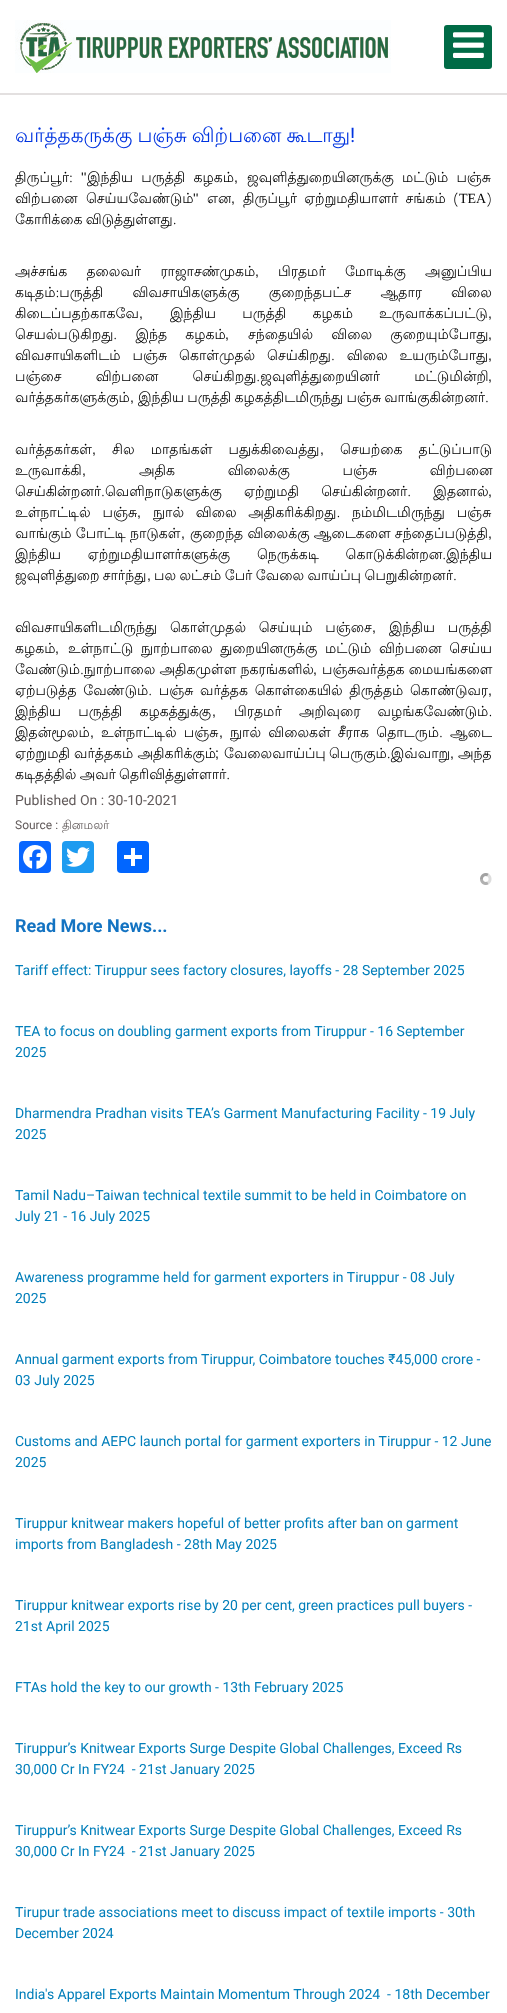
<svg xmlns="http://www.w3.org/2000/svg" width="507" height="2013">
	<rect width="100%" height="100%" fill="#FFFFFF" />
	<rect x="0" y="93" width="507" height="2" fill="#E3E0E0" />
	<image x="15" y="20" width="376" height="53" href="assets/img1.png" />
	<rect x="444" y="25" width="48" height="44" rx="3" fill="#006B46" />
	<image x="453" y="32" width="31" height="26" href="assets/img2.png" />
	<text x="15" y="142" word-spacing="-1" font-family="Lohit Tamil" font-size="20" fill="#0034E0">வர்த்தகருக்கு பஞ்சு விற்பனை கூடாது</text>
	<text x="350" y="142" font-family="Roboto" font-size="20" fill="#0034E0">!</text>
	<text x="15" y="182" font-family="Lohit Tamil" font-size="14" fill="#000000">திருப்பூர்:</text>
	<text x="81" y="182" font-family="Liberation Sans" font-size="14" fill="#000000">''</text>
	<g font-family="Lohit Tamil" font-size="14" fill="#000000">
		<text x="87" y="182" word-spacing="4">இந்திய பருத்தி கழகம்</text>
		<text x="247" y="182" word-spacing="4">ஜவுளித்துறையினருக்கு மட்டும் பஞ்சு</text>
	</g>
	<text x="234" y="182" font-family="Liberation Sans" font-size="14" fill="#000000">,</text>
	<text x="15" y="203" word-spacing="4" font-family="Lohit Tamil" font-size="14" fill="#000000">விற்பனை செய்யவேண்டும்</text>
	<text x="193" y="203" font-family="Liberation Sans" font-size="14" fill="#000000">''</text>
	<text x="207" y="203" font-family="Lohit Tamil" font-size="14" fill="#000000">என</text>
	<text x="231" y="203" font-family="Liberation Sans" font-size="14" fill="#000000">,</text>
	<rect x="231" y="196" width="1" height="1" fill="#FFFFFF" />
	<text x="243" y="203" word-spacing="3" font-family="Lohit Tamil" font-size="14" fill="#000000">திருப்பூர் ஏற்றுமதியாளர் சங்கம் (</text>
	<text x="459" y="203" font-family="Liberation Serif" font-size="14" fill="#000000">TEA</text>
	<g font-family="Lohit Tamil" font-size="14" fill="#000000">
		<text x="486" y="203">)</text>
		<text x="15" y="224" word-spacing="-1">கோரிக்கை விடுத்துள்ளது.</text>
		<text x="15" y="276" word-spacing="15">அச்சங்க தலைவர் ராஜாசண்முகம்</text>
	</g>
	<text x="255" y="276" font-family="Liberation Sans" font-size="14" fill="#000000">,</text>
	<g font-family="Lohit Tamil" font-size="14" fill="#000000">
		<text x="278" y="276" word-spacing="15">பிரதமர் மோடிக்கு அனுப்பிய</text>
		<text x="15" y="297" word-spacing="25">கடிதம்:பருத்தி விவசாயிகளுக்கு குறைந்தபட்ச ஆதார விலை</text>
		<text x="15" y="318">கிடைப்பதற்காகவே</text>
	</g>
	<text x="139" y="318" font-family="Liberation Sans" font-size="14" fill="#000000">,</text>
	<text x="170" y="318" word-spacing="22" font-family="Lohit Tamil" font-size="14" fill="#000000">இந்திய பருத்தி கழகம் உருவாக்கப்பட்டு</text>
	<text x="488" y="318" font-family="Liberation Sans" font-size="14" fill="#000000">,</text>
	<text x="15" y="339" word-spacing="14" font-family="Lohit Tamil" font-size="14" fill="#000000">செயல்படுகிறது. இந்த கழகம்</text>
	<text x="225" y="339" font-family="Liberation Sans" font-size="14" fill="#000000">,</text>
	<text x="248" y="339" word-spacing="14" font-family="Lohit Tamil" font-size="14" fill="#000000">சந்தையில் விலை குறையும்போது</text>
	<text x="488" y="339" font-family="Liberation Sans" font-size="14" fill="#000000">,</text>
	<text x="15" y="360" word-spacing="7.75" font-family="Lohit Tamil" font-size="14" fill="#000000">விவசாயிகளிடம் பஞ்சு கொள்முதல் செய்கிறது. விலை உயரும்போது</text>
	<text x="488" y="360" font-family="Liberation Sans" font-size="14" fill="#000000">,</text>
	<text x="15" y="381" word-spacing="30" font-family="Lohit Tamil" font-size="14" fill="#000000">பஞ்சை விற்பனை செய்கிறது.ஜவுளித்துறையினர் மட்டுமின்றி</text>
	<text x="488" y="381" font-family="Liberation Sans" font-size="14" fill="#000000">,</text>
	<text x="15" y="402" font-family="Lohit Tamil" font-size="14" fill="#000000">வர்த்தகர்களுக்கும்</text>
	<text x="130" y="402" font-family="Liberation Sans" font-size="14" fill="#000000">,</text>
	<g font-family="Lohit Tamil" font-size="14" fill="#000000">
		<text x="138" y="402" word-spacing="-1">இந்திய பருத்தி கழகத்திடமிருந்து பஞ்சு வாங்குகின்றனர்.</text>
		<text x="15" y="454">வர்த்தகர்கள்</text>
	</g>
	<text x="92" y="454" font-family="Liberation Sans" font-size="14" fill="#000000">,</text>
	<text x="112" y="454" word-spacing="12" font-family="Lohit Tamil" font-size="14" fill="#000000">சில மாதங்கள் பதுக்கிவைத்து</text>
	<text x="320" y="454" font-family="Liberation Sans" font-size="14" fill="#000000">,</text>
	<g font-family="Lohit Tamil" font-size="14" fill="#000000">
		<text x="340" y="454" word-spacing="12">செயற்கை தட்டுப்பாடு</text>
		<text x="15" y="475">உருவாக்கி</text>
	</g>
	<text x="82" y="475" font-family="Liberation Sans" font-size="14" fill="#000000">,</text>
	<g font-family="Lohit Tamil" font-size="14" fill="#000000">
		<text x="139" y="475" word-spacing="48.5">அதிக விலைக்கு பஞ்சு விற்பனை</text>
		<text x="15" y="496" word-spacing="18">செய்கின்றனர்.வெளிநாடுகளுக்கு ஏற்றுமதி செய்கின்றனர். இதனால்</text>
	</g>
	<text x="488" y="496" font-family="Liberation Sans" font-size="14" fill="#000000">,</text>
	<text x="15" y="517" word-spacing="7.75" font-family="Lohit Tamil" font-size="14" fill="#000000">உள்நாட்டில் பஞ்சு</text>
	<text x="137" y="517" font-family="Liberation Sans" font-size="14" fill="#000000">,</text>
	<g font-family="Lohit Tamil" font-size="14" fill="#000000">
		<text x="153" y="517" word-spacing="7.5">நுால் விலை அதிகரிக்கிறது. நம்மிடமிருந்து பஞ்சு</text>
		<text x="15" y="538">வாங்கும் போட்டி நாடுகள்</text>
	</g>
	<text x="181" y="538" font-family="Liberation Sans" font-size="14" fill="#000000">,</text>
	<text x="190" y="538" font-family="Lohit Tamil" font-size="14" fill="#000000">குறைந்த விலைக்கு ஆடைகளை சந்தைப்படுத்தி</text>
	<text x="488" y="538" font-family="Liberation Sans" font-size="14" fill="#000000">,</text>
	<g font-family="Lohit Tamil" font-size="14" fill="#000000">
		<text x="15" y="559" word-spacing="22.5">இந்திய ஏற்றுமதியாளர்களுக்கு நெருக்கடி கொடுக்கின்றன.இந்திய</text>
		<text x="15" y="580" word-spacing="-1">ஜவுளித்துறை சார்ந்து</text>
	</g>
	<text x="147" y="580" font-family="Liberation Sans" font-size="14" fill="#000000">,</text>
	<g font-family="Lohit Tamil" font-size="14" fill="#000000">
		<text x="154" y="580" word-spacing="-0.75">பல லட்சம் பேர் வேலை வாய்ப்பு பெறுகின்றனர்.</text>
		<text x="15" y="632" word-spacing="8.5">விவசாயிகளிடமிருந்து கொள்முதல் செய்யும் பஞ்சை</text>
	</g>
	<text x="372" y="632" font-family="Liberation Sans" font-size="14" fill="#000000">,</text>
	<g font-family="Lohit Tamil" font-size="14" fill="#000000">
		<text x="389" y="632" word-spacing="8.5">இந்திய பருத்தி</text>
		<text x="15" y="653">கழகம்</text>
	</g>
	<text x="55" y="653" font-family="Liberation Sans" font-size="14" fill="#000000">,</text>
	<g font-family="Lohit Tamil" font-size="14" fill="#000000">
		<text x="68" y="653" word-spacing="3.5">உள்நாட்டு நுாற்பாலை துறையினருக்கு மட்டும் விற்பனை செய்ய</text>
		<text x="15" y="674">வேண்டும்.நுாற்பாலை அதிகமுள்ள நகரங்களில்</text>
	</g>
	<text x="313" y="674" font-family="Liberation Sans" font-size="14" fill="#000000">,</text>
	<g font-family="Lohit Tamil" font-size="14" fill="#000000">
		<text x="322" y="674">பஞ்சுவர்த்தக மையங்களை</text>
		<text x="15" y="695" word-spacing="2.5">ஏற்படுத்த வேண்டும். பஞ்சு வர்த்தக கொள்கையில் திருத்தம் கொண்டுவர</text>
	</g>
	<text x="488" y="695" font-family="Liberation Sans" font-size="14" fill="#000000">,</text>
	<rect x="488" y="682" width="1" height="7" fill="#FFFFFF" />
	<text x="15" y="716" word-spacing="13" font-family="Lohit Tamil" font-size="14" fill="#000000">இந்திய பருத்தி கழகத்துக்கு</text>
	<text x="212" y="716" font-family="Liberation Sans" font-size="14" fill="#000000">,</text>
	<g font-family="Lohit Tamil" font-size="14" fill="#000000">
		<text x="234" y="716" word-spacing="13">பிரதமர் அறிவுரை வழங்கவேண்டும்.</text>
		<text x="15" y="737">இதன்மூலம்</text>
	</g>
	<text x="90" y="737" font-family="Liberation Sans" font-size="14" fill="#000000">,</text>
	<text x="101" y="737" word-spacing="3" font-family="Lohit Tamil" font-size="14" fill="#000000">உள்நாட்டில் பஞ்சு</text>
	<text x="219" y="737" font-family="Liberation Sans" font-size="14" fill="#000000">,</text>
	<g font-family="Lohit Tamil" font-size="14" fill="#000000">
		<text x="230" y="737" word-spacing="3">நுால் விலைகள் சீராக தொடரும். ஆடை</text>
		<text x="15" y="758">ஏற்றுமதி வர்த்தகம் அதிகரிக்கும்</text>
	</g>
	<text x="215" y="758" font-family="Liberation Sans" font-size="14" fill="#000000">;</text>
	<text x="224" y="758" word-spacing="-1" font-family="Lohit Tamil" font-size="14" fill="#000000">வேலைவாய்ப்பு பெருகும்.இவ்வாறு</text>
	<text x="450" y="758" font-family="Liberation Sans" font-size="14" fill="#000000">,</text>
	<g font-family="Lohit Tamil" font-size="14" fill="#000000">
		<text x="458" y="758">அந்த</text>
		<text x="15" y="779" word-spacing="-1">கடிதத்தில் அவர் தெரிவித்துள்ளார்.</text>
	</g>
	<text x="15" y="805" font-family="Roboto" font-size="14" fill="#615A5A">Published On : 30-10-2021</text>
	<text x="15" y="829" font-family="Roboto" font-size="12" fill="#615A5A">Source :</text>
	<text x="62" y="829" font-family="Lohit Tamil" font-size="12" fill="#615A5A">தினமலர்</text>
	<rect x="19" y="841" width="32" height="32" rx="4" fill="#0866FF" />
	<image x="23" y="845" width="24" height="24" href="assets/img3.png" />
	<rect x="62" y="841" width="32" height="32" rx="4" fill="#1D9BF0" />
	<image x="66" y="847" width="24" height="20" href="assets/img4.png" />
	<rect x="117" y="841" width="32" height="32" rx="4" fill="#0166FF" />
	<rect x="131" y="848" width="4" height="18" fill="#FFFFFF" />
	<rect x="124" y="855" width="18" height="4" fill="#FFFFFF" />
	<image x="480" y="873" width="12" height="12" href="assets/img5.png" />
	<text x="15" y="932" font-family="Roboto" font-size="18" font-weight="700" fill="#1373C2">Read More News...</text>
	<g font-family="Roboto" font-size="14" fill="#017EBA">
		<text x="15" y="975">Tariff effect: Tiruppur sees factory closures, layoffs - 28 September 2025</text>
		<text x="15" y="1036">TEA to focus on doubling garment exports from Tiruppur - 16 September</text>
		<text x="15" y="1057">2025</text>
		<text x="15" y="1118">Dharmendra Pradhan visits TEA’s Garment Manufacturing Facility - 19 July</text>
		<text x="15" y="1139">2025</text>
		<text x="15" y="1200">Tamil Nadu–Taiwan technical textile summit to be held in Coimbatore on</text>
		<text x="15" y="1221">July 21 - 16 July 2025</text>
		<text x="15" y="1282">Awareness programme held for garment exporters in Tiruppur - 08 July</text>
		<text x="15" y="1303">2025</text>
		<text x="15" y="1364">Annual garment exports from Tiruppur, Coimbatore touches ₹45,000 crore -</text>
		<text x="15" y="1385">03 July 2025</text>
		<text x="15" y="1446">Customs and AEPC launch portal for garment exporters in Tiruppur - 12 June</text>
		<text x="15" y="1467">2025</text>
		<text x="15" y="1528">Tiruppur knitwear makers hopeful of better profits after ban on garment</text>
		<text x="15" y="1549">imports from Bangladesh - 28th May 2025</text>
		<text x="15" y="1610">Tiruppur knitwear exports rise by 20 per cent, green practices pull buyers -</text>
		<text x="15" y="1631">21st April 2025</text>
		<text x="15" y="1692">FTAs hold the key to our growth - 13th February 2025</text>
		<text x="15" y="1753">Tiruppur’s Knitwear Exports Surge Despite Global Challenges, Exceed Rs</text>
		<text x="15" y="1774" xml:space="preserve">30,000 Cr In FY24  - 21st January 2025</text>
		<text x="15" y="1835">Tiruppur’s Knitwear Exports Surge Despite Global Challenges, Exceed Rs</text>
		<text x="15" y="1856" xml:space="preserve">30,000 Cr In FY24  - 21st January 2025</text>
		<text x="15" y="1917">Tirupur trade associations meet to discuss impact of textile imports - 30th</text>
		<text x="15" y="1938">December 2024</text>
		<text x="15" y="1999" xml:space="preserve">India's Apparel Exports Maintain Momentum Through 2024  - 18th December</text>
	</g>
</svg>
